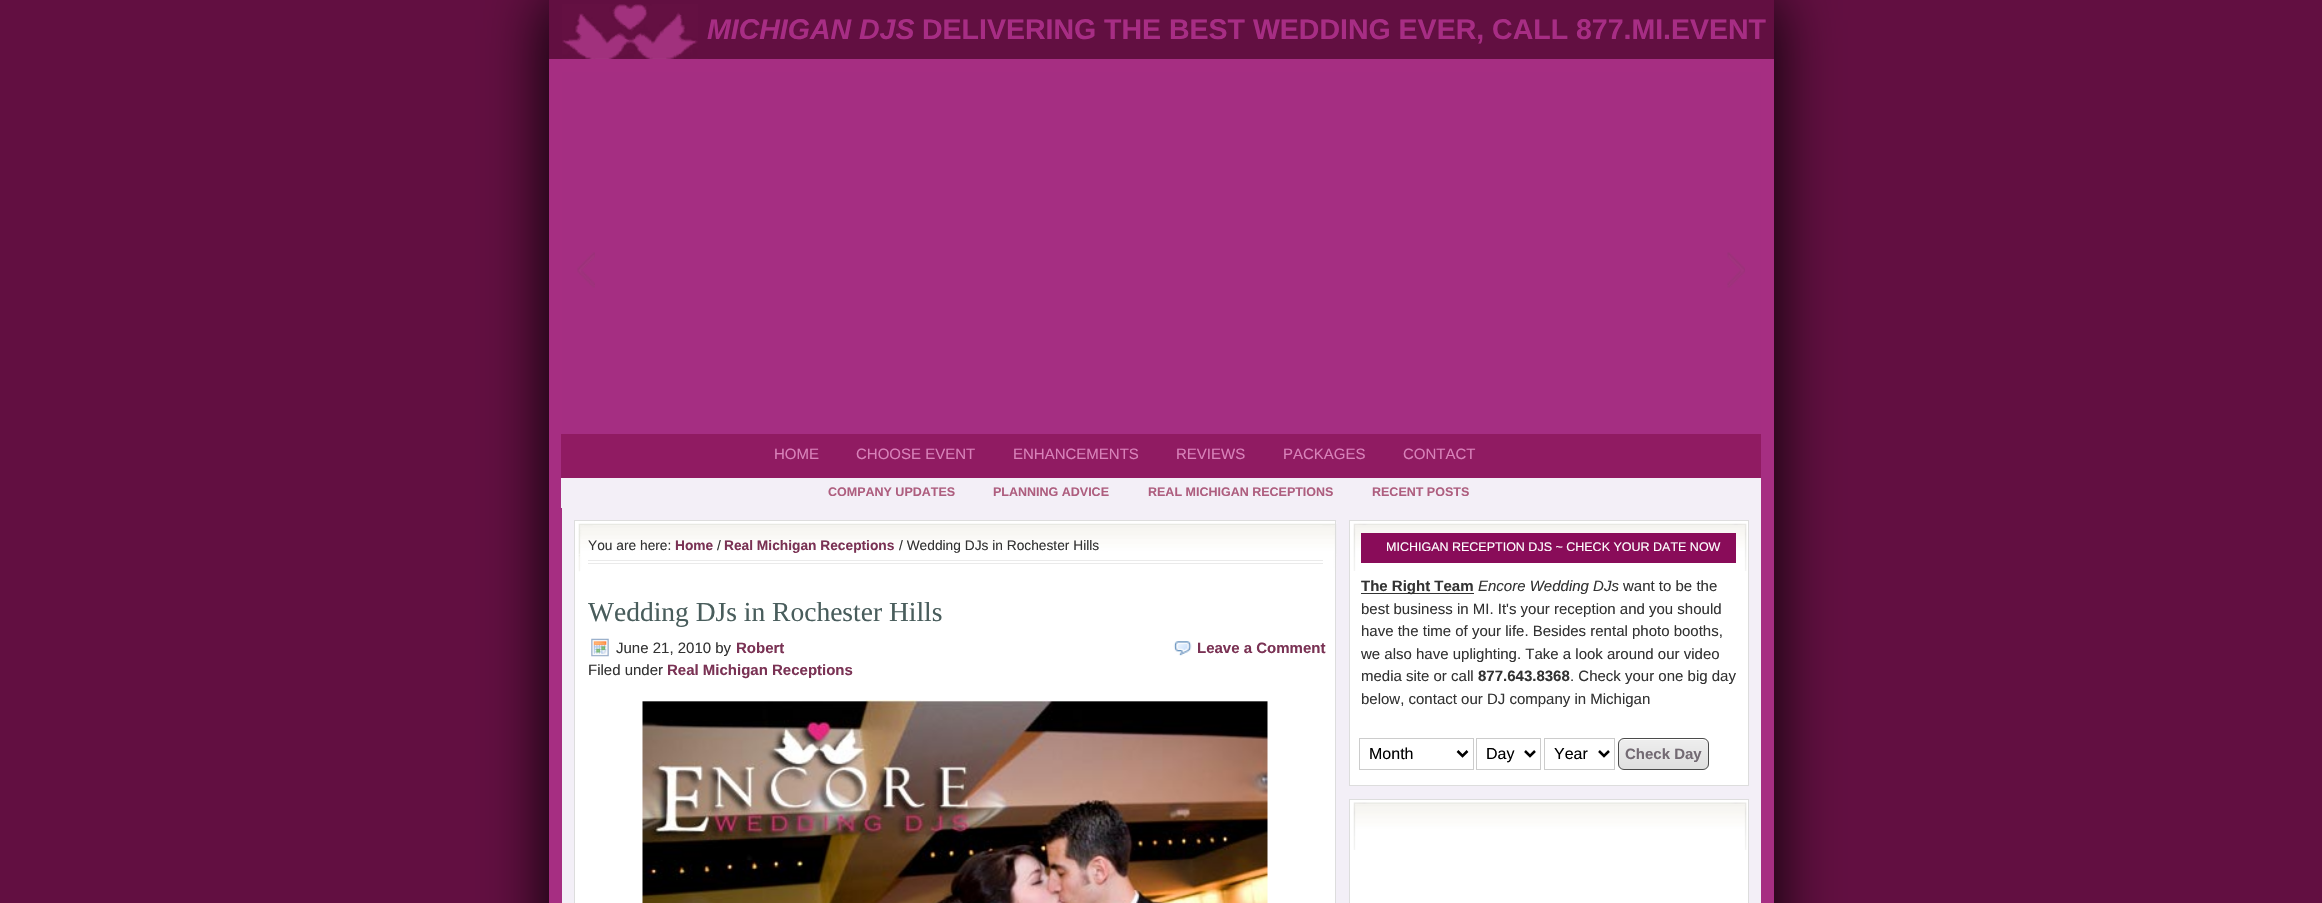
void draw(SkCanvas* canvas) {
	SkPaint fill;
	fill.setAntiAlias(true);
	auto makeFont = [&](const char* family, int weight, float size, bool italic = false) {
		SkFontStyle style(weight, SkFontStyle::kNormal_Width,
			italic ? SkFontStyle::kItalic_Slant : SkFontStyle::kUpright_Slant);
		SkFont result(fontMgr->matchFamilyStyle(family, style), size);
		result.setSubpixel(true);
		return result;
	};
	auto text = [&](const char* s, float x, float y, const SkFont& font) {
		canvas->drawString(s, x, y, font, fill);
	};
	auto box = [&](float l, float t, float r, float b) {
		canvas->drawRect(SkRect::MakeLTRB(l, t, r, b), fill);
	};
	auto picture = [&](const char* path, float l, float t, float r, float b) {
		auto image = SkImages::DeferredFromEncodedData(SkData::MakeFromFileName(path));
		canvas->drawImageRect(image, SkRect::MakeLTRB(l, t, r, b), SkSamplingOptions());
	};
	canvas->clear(0xFF620F41);
	canvas->save();
	canvas->clipPath(SkPathBuilder(SkPathFillType::kEvenOdd).moveTo(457, 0).lineTo(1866, 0).lineTo(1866, 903).lineTo(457, 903).close().moveTo(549, 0).lineTo(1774, 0).lineTo(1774, 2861).lineTo(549, 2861).close().detach(), true);
	fill.setColor(0xFF000000);
	fill.setMaskFilter(SkMaskFilter::MakeBlur(kNormal_SkBlurStyle, 30));
	canvas->drawRect(SkRect::MakeLTRB(548, -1, 1775, 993), fill);
	fill.setMaskFilter(nullptr);
	canvas->restore();
	picture("image0.png", 562, 4, 698, 59);
	fill.setColor(0xFFF3EFF7);
	box(562, 508, 1761, 903);
	fill.setStyle(SkPaint::kStroke_Style);
	fill.setStrokeWidth(13);
	fill.setColor(0xFFA62E82);
	canvas->drawRect(SkRect::MakeLTRB(555.5f, 65.5f, 1767.5f, 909.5f), fill);
	fill.setStyle(SkPaint::kFill_Style);
	fill.setColor(0xFFA52E82);
	box(562, 72, 1761, 434);
	picture("image1.png", 577, 252, 595, 288);
	picture("image2.png", 1727, 252, 1745, 288);
	fill.setColor(0xFF901B62);
	box(561, 434, 1761, 478);
	fill.setColor(0xFFF3EFF7);
	box(561, 478, 1761, 508);
	fill.setColor(0xFFFFFFFF);
	box(575, 521, 1335, 903);
	picture("image3.png", 578, 522, 1337, 572);
	fill.setStyle(SkPaint::kStroke_Style);
	fill.setStrokeWidth(1);
	fill.setColor(0xFFDDDDDD);
	canvas->drawRect(SkRect::MakeLTRB(574.5f, 520.5f, 1335.5f, 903.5f), fill);
	fill.setStyle(SkPaint::kFill_Style);
	fill.setColor(0xFFEAEAEA);
	box(588, 560, 1323, 561);
	box(588, 563, 1323, 564);
	picture("image4.png", 591, 638, 609, 657);
	picture("image5.png", 1173, 641, 1192, 656);
	picture("image6.png", 642, 700, 1268, 903);
	fill.setColor(0xFFFFFFFF);
	box(1350, 521, 1748, 785);
	picture("image7.png", 1353, 523, 1747, 571);
	fill.setStyle(SkPaint::kStroke_Style);
	fill.setColor(0xFFDDDDDD);
	canvas->drawRect(SkRect::MakeLTRB(1349.5f, 520.5f, 1748.5f, 785.5f), fill);
	fill.setStyle(SkPaint::kFill_Style);
	fill.setColor(0xFF890C59);
	box(1361, 533, 1736, 563);
	fill.setColor(0xFF333333);
	box(1361, 593, 1474, 594);
	fill.setStyle(SkPaint::kStroke_Style);
	fill.setColor(0xFFCCCCCC);
	canvas->drawRect(SkRect::MakeLTRB(1359.5f, 738.5f, 1473.5f, 769.5f), fill);
	fill.setStrokeWidth(2.5f);
	fill.setColor(0xFF000000);
	canvas->drawPath(SkPathBuilder().moveTo(1457.5f, 751).lineTo(1462.5f, 756).lineTo(1467.5f, 751).detach(), fill);
	fill.setStrokeWidth(1);
	fill.setColor(0xFFCCCCCC);
	canvas->drawRect(SkRect::MakeLTRB(1476.5f, 738.5f, 1540.5f, 769.5f), fill);
	fill.setStrokeWidth(2.5f);
	fill.setColor(0xFF000000);
	canvas->drawPath(SkPathBuilder().moveTo(1525, 751).lineTo(1530, 756).lineTo(1535, 751).detach(), fill);
	fill.setStrokeWidth(1);
	fill.setColor(0xFFCCCCCC);
	canvas->drawRect(SkRect::MakeLTRB(1544.5f, 738.5f, 1614.5f, 769.5f), fill);
	fill.setStrokeWidth(2.5f);
	fill.setColor(0xFF000000);
	canvas->drawPath(SkPathBuilder().moveTo(1599, 751).lineTo(1604, 756).lineTo(1609, 751).detach(), fill);
	canvas->save();
	canvas->clipPath(SkPathBuilder().moveTo(1624, 738).lineTo(1703, 738).cubicTo(1706.5f, 738, 1709, 740.5f, 1709, 744).lineTo(1709, 764).cubicTo(1709, 767.5f, 1706.5f, 770, 1703, 770).lineTo(1624, 770).cubicTo(1620.5f, 770, 1618, 767.5f, 1618, 764).lineTo(1618, 744).cubicTo(1618, 740.5f, 1620.5f, 738, 1624, 738).close().detach(), true);
	fill.setStyle(SkPaint::kFill_Style);
	{
		const SkColor colors[] = {0xFFEDEDED, 0xFFDFDFDF};
		const float stops[] = {0.05f, 1};
		const SkPoint ends[] = {{1619, 739}, {1619, 769}};
		fill.setShader(SkGradientShader::MakeLinear(ends, colors, stops, 2, SkTileMode::kClamp));
		fill.setAlpha(255);
	}
	box(1618, 739, 1709, 769);
	canvas->restore();
	fill.setShader(nullptr);
	fill.setColor(0xFFFFFFFF);
	canvas->drawPath(SkPathBuilder().moveTo(1624, 740).lineTo(1702, 740).cubicTo(1705, 740, 1708, 742, 1708, 745).cubicTo(1708, 736, 1695, 739, 1690, 739).lineTo(1637, 739).cubicTo(1632, 739, 1619, 736, 1619, 745).cubicTo(1619, 742, 1621, 740, 1624, 740).close().detach(), fill);
	fill.setStyle(SkPaint::kStroke_Style);
	fill.setStrokeWidth(1);
	fill.setColor(0xFF4B4B4B);
	canvas->drawRoundRect(SkRect::MakeLTRB(1618.5f, 738.5f, 1708.5f, 769.5f), 5.5f, 5.5f, fill);
	fill.setStyle(SkPaint::kFill_Style);
	fill.setColor(0xFFFFFFFF);
	box(1350, 800, 1748, 903);
	picture("image8.png", 1353, 802, 1747, 850);
	fill.setStyle(SkPaint::kStroke_Style);
	fill.setColor(0xFFDDDDDD);
	canvas->drawRect(SkRect::MakeLTRB(1349.5f, 799.5f, 1748.5f, 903.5f), fill);
	auto font1 = makeFont("Liberation Sans", 700, 28.5f, true);
	fill.setStyle(SkPaint::kFill_Style);
	fill.setColor(0xFFA72D84);
	text("MICHIGAN DJS", 707, 39, font1);
	auto font2 = makeFont("Liberation Sans", 700, 28.5f);
	text("DELIVERING THE BEST WEDDING EVER, CALL 877.MI.EVENT", 922, 39, font2);
	auto font3 = makeFont("Liberation Sans", 400, 15);
	fill.setColor(0xFFD881B9);
	text("HOME", 774, 459, font3);
	text("CHOOSE EVENT", 856, 459, font3);
	text("ENHANCEMENTS", 1013, 459, font3);
	text("REVIEWS", 1176, 459, font3);
	text("PACKAGES", 1283, 459, font3);
	text("CONTACT", 1403, 459, font3);
	auto font4 = makeFont("Liberation Sans", 700, 12.5f);
	fill.setColor(0xFFAE5E7F);
	text("COMPANY UPDATES", 828, 496, font4);
	text("PLANNING ADVICE", 993, 496, font4);
	text("REAL MICHIGAN RECEPTIONS", 1148, 496, font4);
	text("RECENT POSTS", 1372, 496, font4);
	auto font5 = makeFont("Liberation Sans", 400, 13.75f);
	fill.setColor(0xFF333333);
	text("You are here:", 588, 550, font5);
	auto font6 = makeFont("Liberation Sans", 700, 13.75f);
	fill.setColor(0xFF7A3254);
	text("Home", 675, 550, font6);
	fill.setColor(0xFF333333);
	text("/", 717, 550, font5);
	fill.setColor(0xFF7A3254);
	text("Real Michigan Receptions", 724, 550, font6);
	fill.setColor(0xFF333333);
	text("/ Wedding DJs in Rochester Hills", 899, 550, font5);
	auto font7 = makeFont("Liberation Serif", 400, 27.5f);
	fill.setColor(0xFF495D5C);
	text("Wedding DJs in Rochester Hills", 588, 621, font7);
	fill.setColor(0xFF333333);
	text("June 21, 2010 by", 616, 653, font3);
	auto font8 = makeFont("Liberation Sans", 700, 15);
	fill.setColor(0xFF7A3254);
	text("Robert", 736, 653, font8);
	fill.setColor(0xFF333333);
	text("Filed under", 588, 675, font3);
	fill.setColor(0xFF7A3254);
	text("Real Michigan Receptions", 667, 675, font8);
	text("Leave a Comment", 1197, 653, font8);
	auto font9 = makeFont("Liberation Sans", 400, 12.5f);
	fill.setColor(0xFFFFFFFF);
	text("MICHIGAN RECEPTION DJS ~ CHECK YOUR DATE NOW", 1386, 551, font9);
	fill.setColor(0xFF333333);
	text("The Right Team", 1361, 591, font8);
	auto font10 = makeFont("Liberation Sans", 400, 15, true);
	text("Encore Wedding DJs", 1478, 591, font10);
	text("want to be the", 1623, 591, font3);
	text("best business in MI. It's your reception and you should", 1361, 614, font3);
	text("have the time of your life. Besides rental photo booths,", 1361, 636, font3);
	text("we also have uplighting. Take a look around our video", 1361, 659, font3);
	text("media site or call", 1361, 681, font3);
	text("877.643.8368", 1478, 681, font8);
	text(". Check your one big day", 1570, 681, font3);
	text("below, contact our DJ company in Michigan", 1361, 704, font3);
	auto font11 = makeFont("Liberation Sans", 400, 16);
	fill.setColor(0xFF000000);
	text("Month", 1369, 759, font11);
	text("Day", 1486, 759, font11);
	text("Year", 1554, 759, font11);
	fill.setColor(0xFF736A73);
	text("Check Day", 1625, 759, font8);
}
